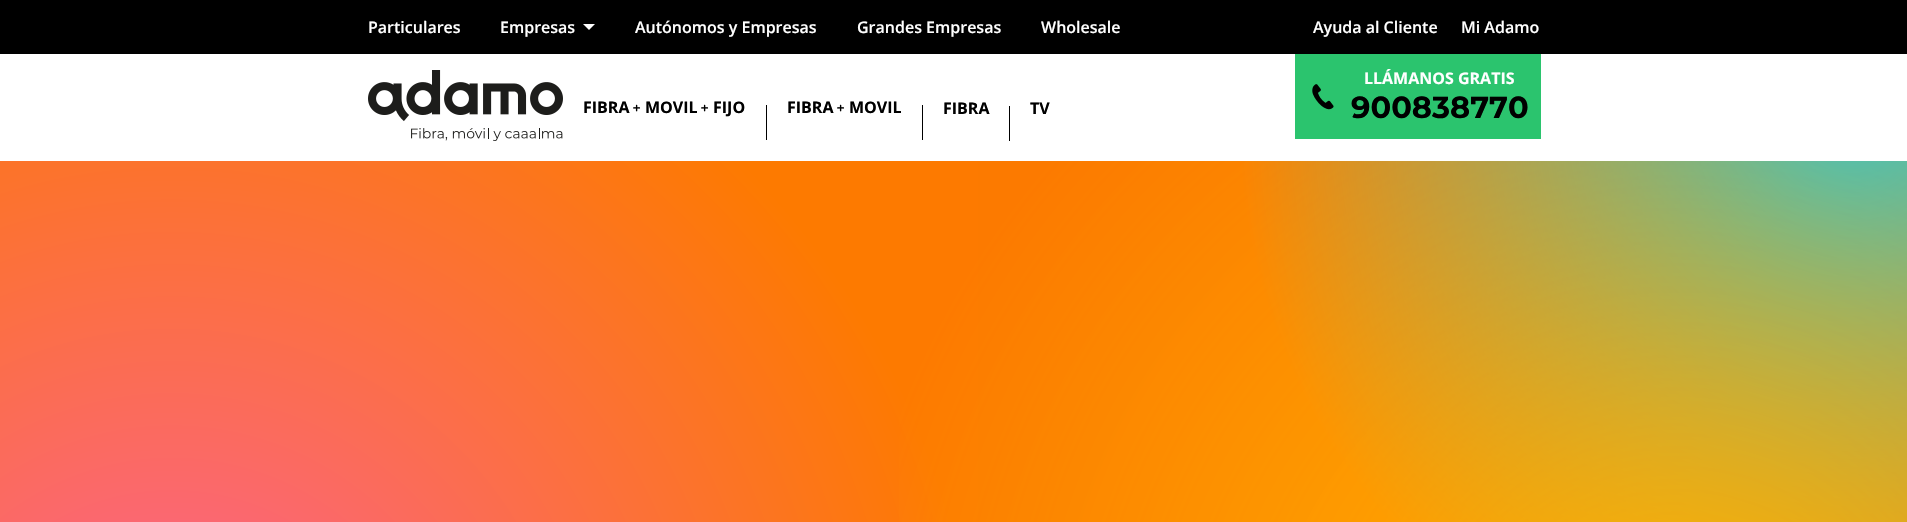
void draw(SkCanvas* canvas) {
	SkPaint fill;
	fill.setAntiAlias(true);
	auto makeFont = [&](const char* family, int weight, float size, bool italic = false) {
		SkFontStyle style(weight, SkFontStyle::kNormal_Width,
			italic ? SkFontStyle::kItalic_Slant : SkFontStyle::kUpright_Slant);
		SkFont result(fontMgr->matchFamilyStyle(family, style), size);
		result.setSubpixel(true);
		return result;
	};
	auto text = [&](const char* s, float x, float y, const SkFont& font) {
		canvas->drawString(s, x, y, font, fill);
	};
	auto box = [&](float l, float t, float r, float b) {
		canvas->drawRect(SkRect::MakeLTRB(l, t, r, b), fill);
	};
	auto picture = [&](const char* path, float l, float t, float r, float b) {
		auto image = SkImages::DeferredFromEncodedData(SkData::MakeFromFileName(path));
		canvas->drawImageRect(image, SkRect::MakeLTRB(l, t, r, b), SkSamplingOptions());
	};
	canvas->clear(0xFFFFFFFF);
	fill.setColor(0xFF000000);
	box(0, 0, 1907, 54);
	fill.setColor(0xFFFFFFFF);
	canvas->drawPath(SkPathBuilder().moveTo(583, 24).lineTo(595, 24).lineTo(589, 30).close().detach(), fill);
	picture("image0.png", 368, 70, 563, 141);
	fill.setColor(0xFF000000);
	box(766, 105, 767, 140);
	box(922, 105, 923, 140);
	box(1009, 106, 1010, 141);
	fill.setColor(0xFF2BC46E);
	box(1295, 54, 1541, 139);
	picture("image1.png", 1312, 84, 1334, 110);
	fill.setColor(0xFFFC7A00);
	box(978, 161, 1240, 522);
	{
		const SkColor colors[] = {0xFFFA6199, 0xFFFD7A00};
		const float stops[] = {0, 1};
		fill.setShader(SkGradientShader::MakeRadial({172, 732}, 807, colors, stops, 2, SkTileMode::kClamp));
		fill.setAlpha(255);
	}
	box(0, 161, 978, 522);
	{
		const SkColor colors[] = {0xFF00C7FF, 0xFFFC7A00};
		const float stops[] = {0, 1};
		SkMatrix m = SkMatrix::Translate(1850, 122).preScale(611, 610);
		fill.setShader(SkGradientShader::MakeRadial({0, 0}, 1, colors, stops, 2, SkTileMode::kClamp, 0, &m));
		fill.setAlpha(255);
	}
	box(1240, 161, 1907, 522);
	{
		const SkColor colors[] = {0xFFFFB500, 0x00FFB500};
		const float stops[] = {0, 1};
		fill.setShader(SkGradientShader::MakeRadial({1678, 709}, 833, colors, stops, 2, SkTileMode::kClamp));
		fill.setAlpha(255);
	}
	box(899, 161, 1907, 522);
	auto font1 = makeFont("Open Sans", 600, 16);
	fill.setShader(nullptr);
	fill.setColor(0xFFFFFFFF);
	text("Particulares", 368, 33, font1);
	text("Empresas", 500, 33, font1);
	text("Autónomos y Empresas", 635, 33, font1);
	text("Grandes Empresas", 857, 33, font1);
	text("Wholesale", 1041, 33, font1);
	text("Ayuda al Cliente", 1313, 33, font1);
	text("Mi Adamo", 1461, 33, font1);
	auto font2 = makeFont("Open Sans", 700, 16);
	fill.setColor(0xFF000000);
	text("FIBRA", 583, 113, font2);
	auto font3 = makeFont("WenQuanYi Zen Hei", 700, 16);
	text("﹢", 629, 113, font3);
	text("MOVIL", 645, 113, font2);
	text("﹢", 697, 113, font3);
	text("FIJO", 713, 113, font2);
	text("FIBRA", 787, 113, font2);
	text("﹢", 833, 113, font3);
	text("MOVIL", 849, 113, font2);
	text("FIBRA", 943, 114, font2);
	text("TV", 1030, 114, font2);
	fill.setColor(0xFFFFFFFF);
	text("LLÁMANOS GRATIS", 1364, 84, font2);
	auto font4 = makeFont("Montserrat", 700, 30.5f);
	fill.setColor(0xFF000000);
	text("900838770", 1351, 118, font4);
}
